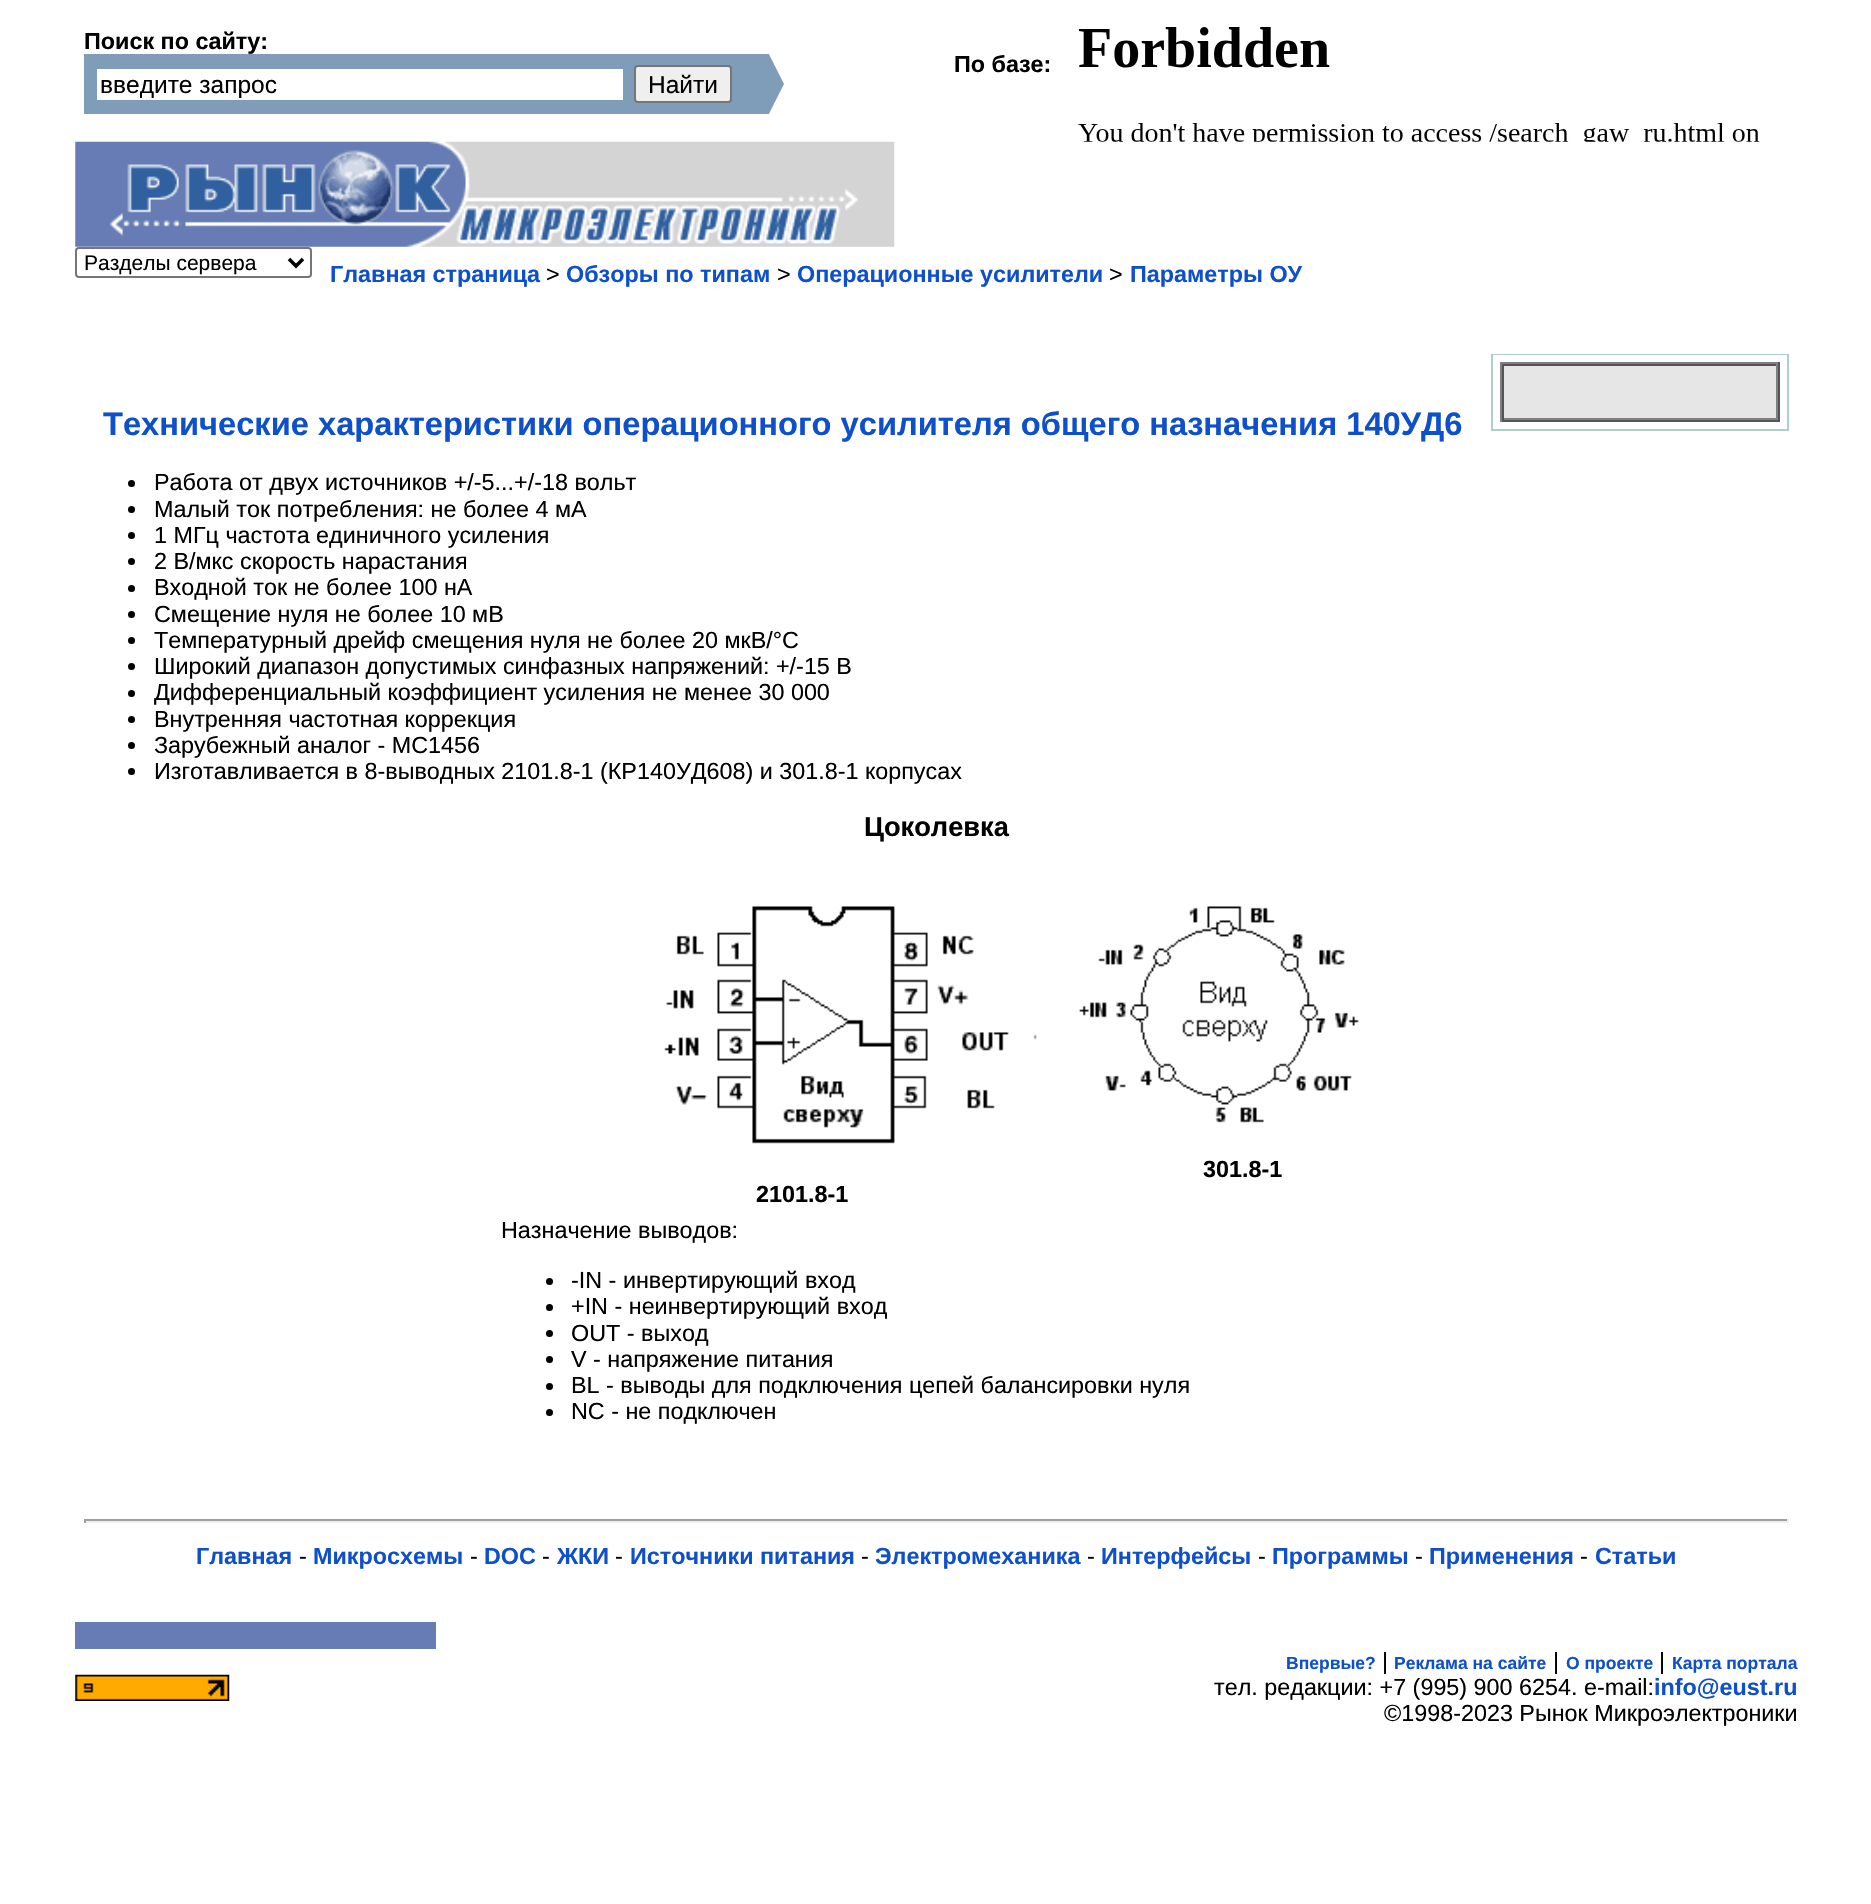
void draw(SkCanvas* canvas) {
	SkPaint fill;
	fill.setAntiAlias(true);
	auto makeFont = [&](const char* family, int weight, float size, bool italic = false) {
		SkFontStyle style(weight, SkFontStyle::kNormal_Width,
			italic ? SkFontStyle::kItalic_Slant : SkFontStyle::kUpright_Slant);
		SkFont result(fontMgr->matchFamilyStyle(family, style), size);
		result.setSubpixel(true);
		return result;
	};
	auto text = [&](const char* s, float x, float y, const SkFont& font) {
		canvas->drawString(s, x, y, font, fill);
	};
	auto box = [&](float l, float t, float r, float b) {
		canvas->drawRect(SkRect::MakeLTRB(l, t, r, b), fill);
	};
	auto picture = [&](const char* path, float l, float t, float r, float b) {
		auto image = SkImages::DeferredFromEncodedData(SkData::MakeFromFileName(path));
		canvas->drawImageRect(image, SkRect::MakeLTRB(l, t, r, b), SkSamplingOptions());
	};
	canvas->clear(0xFFFFFFFF);
	fill.setColor(0xFF7F9DB9);
	box(84, 54, 732, 114);
	fill.setColor(0xFFFFFFFF);
	box(97, 69, 623, 100);
	fill.setColor(0xFFEFEFEF);
	canvas->drawRoundRect(SkRect::MakeLTRB(635, 66, 731, 102), 3, 3, fill);
	fill.setStyle(SkPaint::kStroke_Style);
	fill.setStrokeWidth(2);
	fill.setColor(0xFF767676);
	canvas->drawRoundRect(SkRect::MakeLTRB(635, 66, 731, 102), 3, 3, fill);
	canvas->save();
	canvas->clipRect(SkRect::MakeLTRB(732, 54, 784, 114));
	fill.setStyle(SkPaint::kFill_Style);
	fill.setColor(0xFF7F9DB9);
	canvas->drawPath(SkPathBuilder().moveTo(732, 187).lineTo(732, -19).lineTo(784, 84).close().detach(), fill);
	canvas->restore();
	picture("image0.png", 1078, 27, 1760, 142);
	picture("image1.png", 75, 141, 895, 247);
	fill.setStyle(SkPaint::kStroke_Style);
	fill.setColor(0xFF767676);
	canvas->drawRoundRect(SkRect::MakeLTRB(76, 248, 311, 277), 3, 3, fill);
	fill.setStrokeWidth(3.5f);
	fill.setColor(0xFF000000);
	canvas->drawPath(SkPathBuilder().moveTo(289, 259).lineTo(296, 266).lineTo(303, 259).detach(), fill);
	fill.setStyle(SkPaint::kFill_Style);
	fill.setColor(0xFFACCFC7);
	box(1491, 354, 1789, 431);
	fill.setColor(0xFFFFFFFF);
	box(1493, 355, 1787, 429);
	fill.setColor(0xFFE6E6E6);
	box(1504, 366, 1776, 418);
	fill.setColor(0xFF808080);
	box(1500, 362, 1780, 364);
	fill.setColor(0xFF555555);
	box(1778, 362, 1780, 422);
	box(1500, 420, 1780, 422);
	fill.setColor(0xFF808080);
	box(1500, 362, 1502, 422);
	fill.setColor(0xFF555555);
	box(1502, 364, 1778, 366);
	fill.setColor(0xFF808080);
	box(1776, 364, 1778, 420);
	box(1502, 418, 1778, 420);
	fill.setColor(0xFF555555);
	box(1502, 364, 1504, 420);
	fill.setColor(0xFF000000);
	canvas->drawCircle(131.5f, 483.5f, 3.5f, fill);
	canvas->drawCircle(131.5f, 509.5f, 3.5f, fill);
	canvas->drawCircle(131.5f, 535.5f, 3.5f, fill);
	canvas->drawCircle(131.5f, 561.5f, 3.5f, fill);
	canvas->drawCircle(131.5f, 588.5f, 3.5f, fill);
	canvas->drawCircle(131.5f, 614.5f, 3.5f, fill);
	canvas->drawCircle(131.5f, 640.5f, 3.5f, fill);
	canvas->drawCircle(131.5f, 666.5f, 3.5f, fill);
	canvas->drawCircle(131.5f, 693.5f, 3.5f, fill);
	canvas->drawCircle(131.5f, 719.5f, 3.5f, fill);
	canvas->drawCircle(131.5f, 745.5f, 3.5f, fill);
	canvas->drawCircle(131.5f, 771.5f, 3.5f, fill);
	picture("image2.png", 1079, 906, 1359, 1123);
	picture("image3.png", 664, 906, 1037, 1144);
	canvas->drawCircle(549.5f, 1281.5f, 3.5f, fill);
	canvas->drawCircle(549.5f, 1307.5f, 3.5f, fill);
	canvas->drawCircle(549.5f, 1333.5f, 3.5f, fill);
	canvas->drawCircle(549.5f, 1359.5f, 3.5f, fill);
	canvas->drawCircle(549.5f, 1386.5f, 3.5f, fill);
	canvas->drawCircle(549.5f, 1412.5f, 3.5f, fill);
	fill.setColor(0xFF9F9F9F);
	box(84, 1519, 1789, 1521);
	fill.setColor(0xFFEEEEEE);
	box(1787, 1519, 1789, 1523);
	box(84, 1521, 1789, 1523);
	fill.setColor(0xFF9F9F9F);
	box(84, 1519, 86, 1523);
	fill.setColor(0xFF677CB4);
	box(75, 1622, 436, 1649);
	picture("image4.png", 75, 1674, 230, 1701);
	auto font1 = makeFont("Liberation Sans", 700, 23.35f);
	fill.setColor(0xFF000000);
	text("Поиск по сайту:", 84, 49, font1);
	auto font2 = makeFont("Liberation Sans", 400, 24.5f);
	text("введите запрос", 100, 93, font2);
	text("Найти", 648, 93, font2);
	text("По базе:", 954, 72, font1);
	auto font3 = makeFont("Liberation Sans", 400, 21);
	text("Разделы сервера", 84, 270, font3);
	fill.setColor(0xFF0E50CB);
	text("Главная страница", 330, 282, font1);
	auto font4 = makeFont("Liberation Sans", 400, 23.35f);
	fill.setColor(0xFF000000);
	text(">", 546, 282, font4);
	fill.setColor(0xFF0E50CB);
	text("Обзоры по типам", 566, 282, font1);
	fill.setColor(0xFF000000);
	text(">", 777, 282, font4);
	fill.setColor(0xFF0E50CB);
	text("Операционные усилители", 797, 282, font1);
	fill.setColor(0xFF000000);
	text(">", 1109, 282, font4);
	fill.setColor(0xFF0E50CB);
	text("Параметры ОУ", 1130, 282, font1);
	auto font5 = makeFont("Liberation Sans", 700, 32.65f);
	text("Технические характеристики операционного усилителя общего назначения 140УД6", 103, 435, font5);
	fill.setColor(0xFF000000);
	text("Работа от двух источников +/-5...+/-18 вольт", 154, 490, font4);
	text("Малый ток потребления: не более 4 мА", 154, 517, font4);
	text("1 МГц частота единичного усиления", 154, 543, font4);
	text("2 В/мкс скорость нарастания", 154, 569, font4);
	text("Входной ток не более 100 нА", 154, 595, font4);
	text("Смещение нуля не более 10 мВ", 154, 622, font4);
	text("Температурный дрейф смещения нуля не более 20 мкВ/°С", 154, 648, font4);
	text("Широкий диапазон допустимых синфазных напряжений: +/-15 В", 154, 674, font4);
	text("Дифференциальный коэффициент усиления не менее 30 000", 154, 700, font4);
	text("Внутренняя частотная коррекция", 154, 727, font4);
	text("Зарубежный аналог - МС1456", 154, 753, font4);
	text("Изготавливается в 8-выводных 2101.8-1 (КР140УД608) и 301.8-1 корпусах", 154, 779, font4);
	auto font6 = makeFont("Liberation Sans", 700, 27.25f);
	text("Цоколевка", 864, 836, font6);
	text("301.8-1", 1203, 1177, font1);
	text("2101.8-1", 756, 1202, font1);
	text("Назначение выводов:", 501, 1238, font4);
	text("-IN - инвертирующий вход", 571, 1288, font4);
	text("+IN - неинвертирующий вход", 571, 1314, font4);
	text("OUT - выход", 571, 1341, font4);
	text("V - напряжение питания", 571, 1367, font4);
	text("BL - выводы для подключения цепей балансировки нуля", 571, 1393, font4);
	text("NC - не подключен", 571, 1419, font4);
	fill.setColor(0xFF0E50CB);
	text("Главная", 196, 1564, font1);
	fill.setColor(0xFF000000);
	text("-", 299, 1564, font4);
	fill.setColor(0xFF0E50CB);
	text("Микросхемы", 313, 1564, font1);
	fill.setColor(0xFF000000);
	text("-", 470, 1564, font4);
	fill.setColor(0xFF0E50CB);
	text("DOC", 484, 1564, font1);
	fill.setColor(0xFF000000);
	text("-", 542, 1564, font4);
	fill.setColor(0xFF0E50CB);
	text("ЖКИ", 557, 1564, font1);
	fill.setColor(0xFF000000);
	text("-", 615, 1564, font4);
	fill.setColor(0xFF0E50CB);
	text("Источники питания", 630, 1564, font1);
	fill.setColor(0xFF000000);
	text("-", 861, 1564, font4);
	fill.setColor(0xFF0E50CB);
	text("Электромеханика", 875, 1564, font1);
	fill.setColor(0xFF000000);
	text("-", 1087, 1564, font4);
	fill.setColor(0xFF0E50CB);
	text("Интерфейсы", 1101, 1564, font1);
	fill.setColor(0xFF000000);
	text("-", 1258, 1564, font4);
	fill.setColor(0xFF0E50CB);
	text("Программы", 1272, 1564, font1);
	fill.setColor(0xFF000000);
	text("-", 1415, 1564, font4);
	fill.setColor(0xFF0E50CB);
	text("Применения", 1429, 1564, font1);
	fill.setColor(0xFF000000);
	text("-", 1580, 1564, font4);
	fill.setColor(0xFF0E50CB);
	text("Статьи", 1595, 1564, font1);
	auto font7 = makeFont("Liberation Sans", 700, 17.5f);
	text("Впервые?", 1286, 1669, font7);
	fill.setColor(0xFF000000);
	text("|", 1382, 1669, font4);
	fill.setColor(0xFF0E50CB);
	text("Реклама на сайте", 1394, 1669, font7);
	fill.setColor(0xFF000000);
	text("|", 1553, 1669, font4);
	fill.setColor(0xFF0E50CB);
	text("О проекте", 1566, 1669, font7);
	fill.setColor(0xFF000000);
	text("|", 1659, 1669, font4);
	fill.setColor(0xFF0E50CB);
	text("Карта портала", 1672, 1669, font7);
	fill.setColor(0xFF000000);
	text("тел. редакции: +7 (995) 900 6254. e-mail:", 1214, 1695, font4);
	fill.setColor(0xFF0E50CB);
	text("info@eust.ru", 1654, 1695, font1);
	fill.setColor(0xFF000000);
	text("©1998-2023 Рынок Микроэлектроники", 1384, 1721, font4);
}
